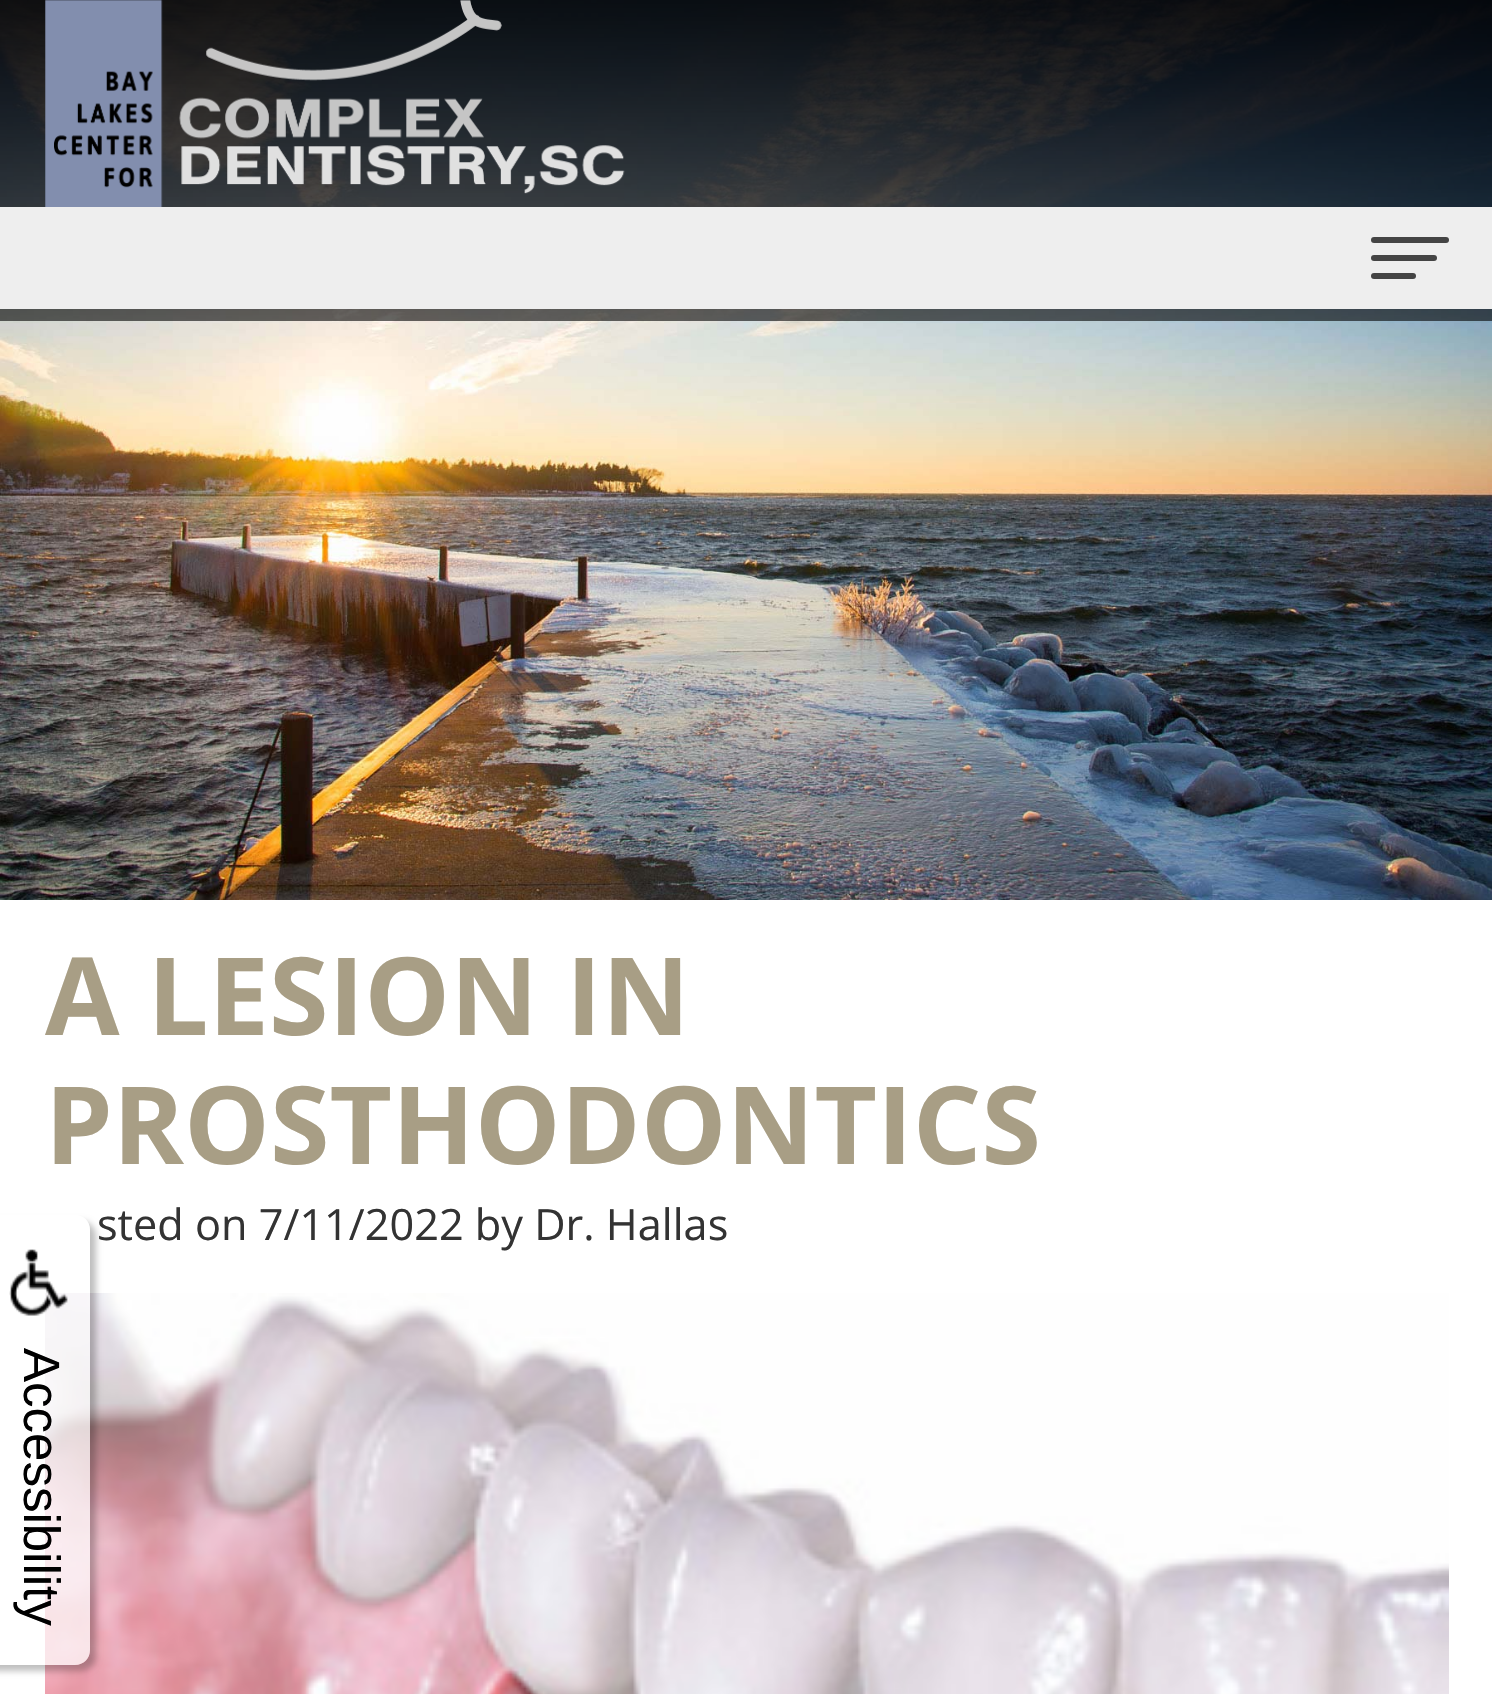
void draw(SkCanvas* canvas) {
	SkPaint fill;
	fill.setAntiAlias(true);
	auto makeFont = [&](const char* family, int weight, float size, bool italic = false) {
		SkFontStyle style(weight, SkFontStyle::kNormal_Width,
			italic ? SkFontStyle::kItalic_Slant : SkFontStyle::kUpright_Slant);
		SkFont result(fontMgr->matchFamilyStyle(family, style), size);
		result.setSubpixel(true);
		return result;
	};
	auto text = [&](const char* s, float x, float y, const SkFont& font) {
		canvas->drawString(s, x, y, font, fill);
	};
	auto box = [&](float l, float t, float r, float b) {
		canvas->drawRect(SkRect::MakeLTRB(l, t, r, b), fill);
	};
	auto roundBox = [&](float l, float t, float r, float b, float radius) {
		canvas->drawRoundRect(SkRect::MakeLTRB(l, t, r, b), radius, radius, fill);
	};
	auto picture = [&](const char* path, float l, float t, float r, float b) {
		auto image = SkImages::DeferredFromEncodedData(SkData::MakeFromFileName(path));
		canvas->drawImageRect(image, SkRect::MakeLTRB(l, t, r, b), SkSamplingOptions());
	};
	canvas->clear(0xFFFFFFFF);
	picture("image0.png", 0, 0, 1492, 900);
	picture("image1.png", 45, 0, 625, 207);
	fill.setColor(0xFFEEEEEE);
	box(0, 207, 1492, 309);
	fill.setColor(0xFF444444);
	roundBox(1371, 237, 1449, 243, 3);
	roundBox(1371, 255, 1437, 261, 3);
	roundBox(1371, 273, 1416, 279, 3);
	picture("image2.png", 45, 1293, 1449, 1694);
	canvas->save();
	canvas->clipPath(SkPathBuilder(SkPathFillType::kEvenOdd).moveTo(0, 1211).lineTo(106, 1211).lineTo(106, 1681).lineTo(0, 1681).close().moveTo(-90, 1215).lineTo(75, 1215).cubicTo(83.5f, 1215, 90, 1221.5f, 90, 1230).lineTo(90, 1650).cubicTo(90, 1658.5f, 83.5f, 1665, 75, 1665).lineTo(-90, 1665).close().detach(), true);
	fill.setColor(0x40000000);
	fill.setMaskFilter(SkMaskFilter::MakeBlur(kNormal_SkBlurStyle, 3));
	canvas->drawRoundRect(SkRect::MakeLTRB(-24, 1221, 96, 1671), 15, 15, fill);
	fill.setMaskFilter(nullptr);
	canvas->restore();
	fill.setColor(0xB3FFFFFF);
	canvas->drawPath(SkPathBuilder().moveTo(-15, 1215).lineTo(75, 1215).cubicTo(83.5f, 1215, 90, 1221.5f, 90, 1230).lineTo(90, 1650).cubicTo(90, 1658.5f, 83.5f, 1665, 75, 1665).lineTo(-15, 1665).close().detach(), fill);
	picture("image3.png", 9, 1249, 68, 1316);
	auto font1 = makeFont("Open Sans", 700, 108);
	fill.setColor(0xFFA89E85);
	text("A LESION IN", 45, 1035, font1);
	text("PROSTHODONTICS", 45, 1164, font1);
	auto font2 = makeFont("Open Sans", 400, 43.25f);
	fill.setColor(0xFF333333);
	text("sted on 7/11/2022 by Dr. Hallas", 97, 1240, font2);
	auto font3 = makeFont("Liberation Sans", 400, 51);
	fill.setColor(0xFF000000);
	canvas->save();
	canvas->rotate(90, 24, 1348);
	text("Accessibility", 24, 1348, font3);
	canvas->restore();
}
